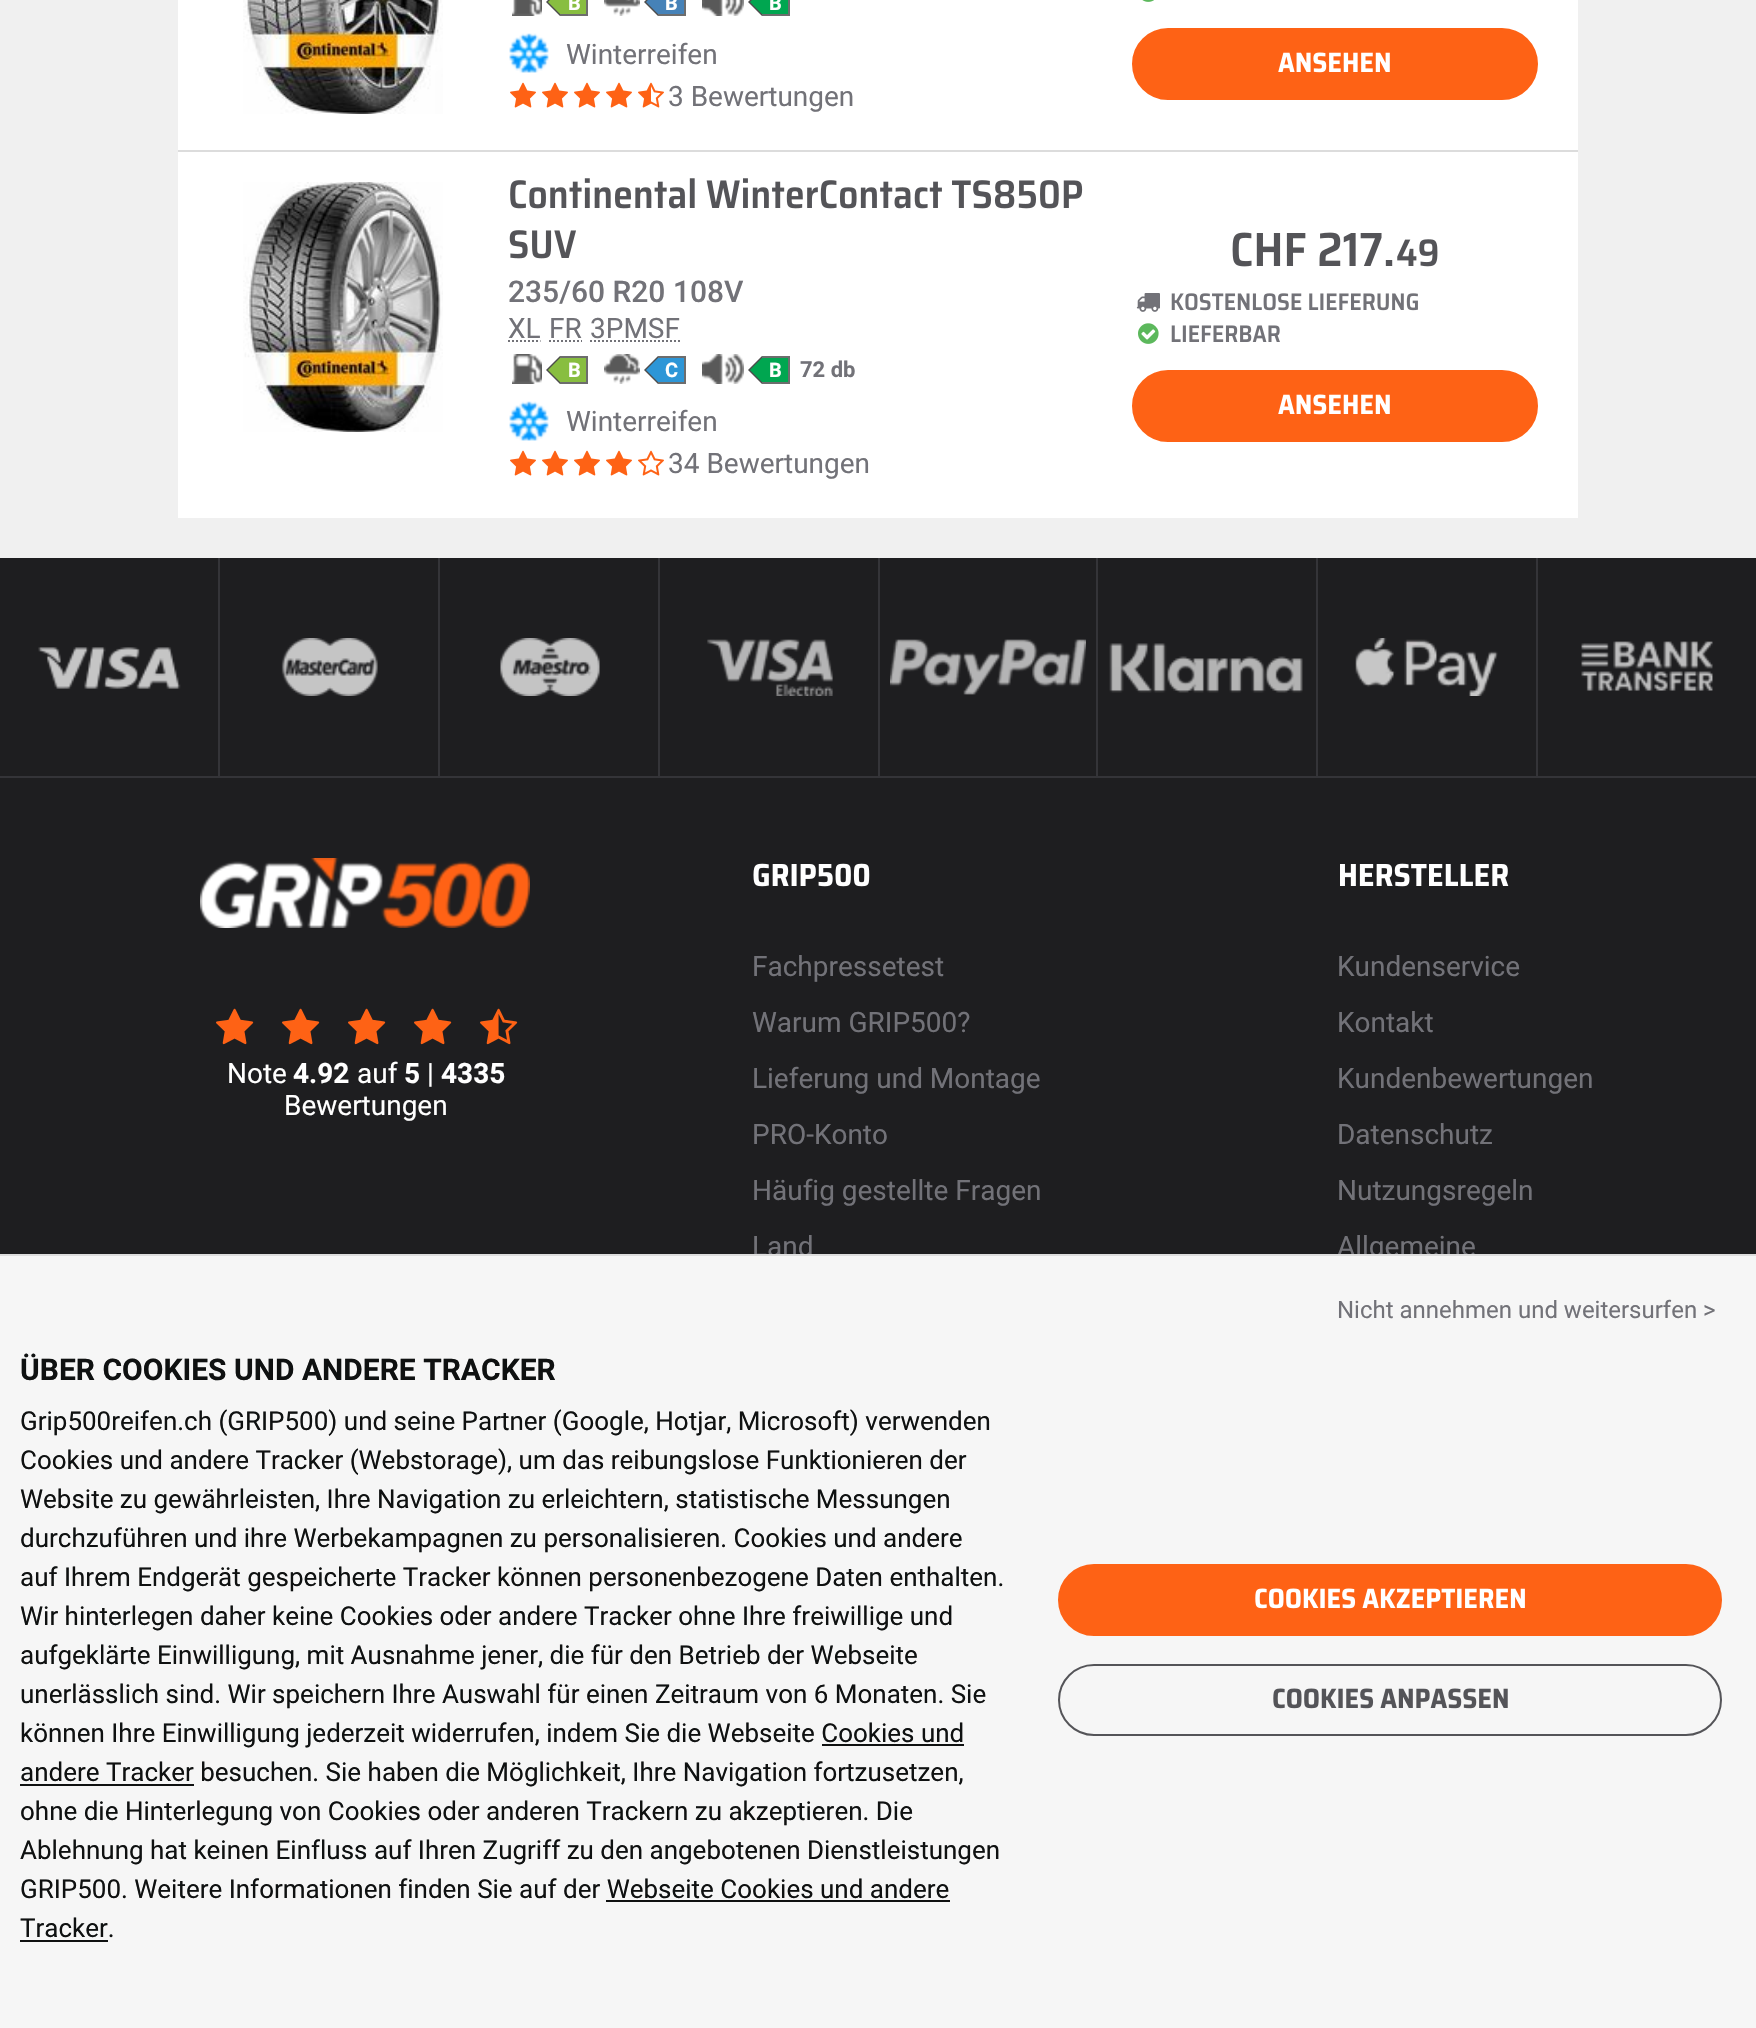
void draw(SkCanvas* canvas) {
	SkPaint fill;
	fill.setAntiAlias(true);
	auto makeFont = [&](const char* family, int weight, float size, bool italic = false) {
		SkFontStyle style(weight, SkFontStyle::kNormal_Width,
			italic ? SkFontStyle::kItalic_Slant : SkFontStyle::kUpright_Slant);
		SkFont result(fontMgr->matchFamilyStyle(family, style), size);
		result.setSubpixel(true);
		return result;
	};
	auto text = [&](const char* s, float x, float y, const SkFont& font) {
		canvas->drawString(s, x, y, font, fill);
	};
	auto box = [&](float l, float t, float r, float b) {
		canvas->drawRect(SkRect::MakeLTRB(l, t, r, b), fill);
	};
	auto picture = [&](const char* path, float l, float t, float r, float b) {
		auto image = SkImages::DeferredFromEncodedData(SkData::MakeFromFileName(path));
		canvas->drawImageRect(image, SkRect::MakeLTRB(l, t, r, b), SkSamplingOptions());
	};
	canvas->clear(0xFFF0F0F0);
	fill.setColor(0xFFFFFFFF);
	box(178, 0, 1578, 518);
	fill.setColor(0xFFDCDCDC);
	box(178, 150, 1578, 152);
	picture("image0.png", 243, 0, 443, 114);
	picture("image1.png", 512, 0, 542, 16);
	fill.setColor(0xFF88BE40);
	box(560, 0, 586, 14);
	fill.setColor(0xFF6D6D6D);
	box(586, 0, 588, 16);
	box(560, 14, 588, 16);
	fill.setColor(0xFF4C4C4C);
	canvas->drawPath(SkPathBuilder().moveTo(560, -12).lineTo(560, 16).lineTo(546, 2).close().detach(), fill);
	fill.setColor(0xFF88BE40);
	canvas->drawPath(SkPathBuilder().moveTo(560, -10).lineTo(560, 14).lineTo(548, 2).close().detach(), fill);
	picture("image2.png", 604, 0, 640, 16);
	fill.setColor(0xFF4682B8);
	box(658, 0, 684, 14);
	fill.setColor(0xFF6D6D6D);
	box(684, 0, 686, 16);
	box(658, 14, 686, 16);
	fill.setColor(0xFF4C4C4C);
	canvas->drawPath(SkPathBuilder().moveTo(658, -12).lineTo(658, 16).lineTo(644, 2).close().detach(), fill);
	fill.setColor(0xFF4682B8);
	canvas->drawPath(SkPathBuilder().moveTo(658, -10).lineTo(658, 14).lineTo(646, 2).close().detach(), fill);
	picture("image3.png", 702, 0, 744, 16);
	fill.setColor(0xFF00A650);
	box(762, 0, 788, 14);
	fill.setColor(0xFF6D6D6D);
	box(788, 0, 790, 16);
	box(762, 14, 790, 16);
	fill.setColor(0xFF4C4C4C);
	canvas->drawPath(SkPathBuilder().moveTo(762, -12).lineTo(762, 16).lineTo(748, 2).close().detach(), fill);
	fill.setColor(0xFF00A650);
	canvas->drawPath(SkPathBuilder().moveTo(762, -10).lineTo(762, 14).lineTo(750, 2).close().detach(), fill);
	picture("image4.png", 509, 33, 549, 73);
	picture("image5.png", 510, 82, 536, 108);
	picture("image5.png", 542, 82, 568, 108);
	picture("image5.png", 574, 82, 600, 108);
	picture("image5.png", 606, 82, 632, 108);
	picture("image6.png", 638, 82, 664, 108);
	picture("image7.png", 1142, 0, 1154, 2);
	fill.setColor(0xFFFE6215);
	canvas->drawRoundRect(SkRect::MakeLTRB(1133, 29, 1537, 99), 35, 35, fill);
	fill.setStyle(SkPaint::kStroke_Style);
	fill.setStrokeWidth(2);
	canvas->drawRoundRect(SkRect::MakeLTRB(1133, 29, 1537, 99), 35, 35, fill);
	picture("image8.png", 1278, 52, 1390, 73);
	picture("image9.png", 243, 182, 443, 432);
	picture("image10.png", 510, 178, 1083, 209);
	picture("image11.png", 509, 230, 576, 259);
	fill.setColor(0xFF727278);
	fill.setPathEffect(SkDashPathEffect::Make({{2, 2}}, 0));
	canvas->drawPath(SkPathBuilder().moveTo(508, 341).lineTo(540.5f, 341).detach(), fill);
	fill.setPathEffect(nullptr);
	fill.setPathEffect(SkDashPathEffect::Make({{2, 2}}, 0));
	canvas->drawPath(SkPathBuilder().moveTo(549, 341).lineTo(582, 341).detach(), fill);
	fill.setPathEffect(nullptr);
	fill.setPathEffect(SkDashPathEffect::Make({{2, 2}}, 0));
	canvas->drawPath(SkPathBuilder().moveTo(590, 341).lineTo(680, 341).detach(), fill);
	fill.setPathEffect(nullptr);
	picture("image12.png", 512, 354, 542, 384);
	fill.setStyle(SkPaint::kFill_Style);
	fill.setColor(0xFF88BE40);
	box(560, 358, 586, 382);
	fill.setColor(0xFF6D6D6D);
	box(560, 356, 588, 358);
	box(586, 356, 588, 384);
	box(560, 382, 588, 384);
	fill.setColor(0xFF4C4C4C);
	canvas->drawPath(SkPathBuilder().moveTo(560, 356).lineTo(560, 384).lineTo(546, 370).close().detach(), fill);
	fill.setColor(0xFF88BE40);
	canvas->drawPath(SkPathBuilder().moveTo(560, 358).lineTo(560, 382).lineTo(548, 370).close().detach(), fill);
	picture("image13.png", 604, 354, 640, 384);
	fill.setColor(0xFF2D96D7);
	box(658, 358, 684, 382);
	fill.setColor(0xFF6D6D6D);
	box(658, 356, 686, 358);
	box(684, 356, 686, 384);
	box(658, 382, 686, 384);
	fill.setColor(0xFF4C4C4C);
	canvas->drawPath(SkPathBuilder().moveTo(658, 356).lineTo(658, 384).lineTo(644, 370).close().detach(), fill);
	fill.setColor(0xFF2D96D7);
	canvas->drawPath(SkPathBuilder().moveTo(658, 358).lineTo(658, 382).lineTo(646, 370).close().detach(), fill);
	picture("image14.png", 702, 354, 744, 384);
	fill.setColor(0xFF00A650);
	box(762, 358, 788, 382);
	fill.setColor(0xFF6D6D6D);
	box(762, 356, 790, 358);
	box(788, 356, 790, 384);
	box(762, 382, 790, 384);
	fill.setColor(0xFF4C4C4C);
	canvas->drawPath(SkPathBuilder().moveTo(762, 356).lineTo(762, 384).lineTo(748, 370).close().detach(), fill);
	fill.setColor(0xFF00A650);
	canvas->drawPath(SkPathBuilder().moveTo(762, 358).lineTo(762, 382).lineTo(750, 370).close().detach(), fill);
	picture("image4.png", 509, 401, 549, 441);
	picture("image5.png", 510, 450, 536, 476);
	picture("image5.png", 542, 450, 568, 476);
	picture("image5.png", 574, 450, 600, 476);
	picture("image5.png", 606, 450, 632, 476);
	picture("image15.png", 638, 450, 664, 476);
	picture("image16.png", 1232, 232, 1393, 267);
	picture("image17.png", 1397, 239, 1438, 267);
	picture("image18.png", 1136, 293, 1160, 312);
	picture("image19.png", 1171, 293, 1418, 311);
	picture("image20.png", 1138, 323, 1159, 344);
	picture("image21.png", 1171, 325, 1280, 342);
	fill.setColor(0xFFFE6215);
	canvas->drawRoundRect(SkRect::MakeLTRB(1133, 371, 1537, 441), 35, 35, fill);
	fill.setStyle(SkPaint::kStroke_Style);
	canvas->drawRoundRect(SkRect::MakeLTRB(1133, 371, 1537, 441), 35, 35, fill);
	picture("image8.png", 1278, 394, 1390, 415);
	fill.setStyle(SkPaint::kFill_Style);
	fill.setColor(0xFF1E1E20);
	box(0, 558, 1756, 1254);
	fill.setColor(0xFF343438);
	box(0, 776, 1756, 778);
	picture("image22.png", 38, 647, 181, 689);
	box(218, 558, 220, 776);
	picture("image23.png", 281, 638, 378, 696);
	box(438, 558, 440, 776);
	picture("image24.png", 500, 638, 600, 696);
	box(658, 558, 660, 776);
	picture("image25.png", 707, 639, 833, 696);
	box(878, 558, 880, 776);
	picture("image26.png", 890, 639, 1086, 695);
	box(1096, 558, 1098, 776);
	picture("image27.png", 1109, 643, 1303, 693);
	box(1316, 558, 1318, 776);
	picture("image28.png", 1355, 638, 1498, 696);
	box(1536, 558, 1538, 776);
	picture("image29.png", 1581, 641, 1713, 691);
	picture("image30.png", 200, 858, 530, 928);
	picture("image31.png", 216, 1008, 254, 1045);
	picture("image31.png", 282, 1008, 320, 1045);
	picture("image31.png", 348, 1008, 386, 1045);
	picture("image31.png", 414, 1008, 452, 1045);
	picture("image32.png", 480, 1008, 518, 1045);
	picture("image33.png", 753, 863, 870, 887);
	picture("image34.png", 1340, 863, 1509, 887);
	auto font1 = makeFont("Roboto", 700, 20);
	fill.setColor(0xFFFFFFFF);
	text("B", 568, 10, font1);
	text("B", 665, 10, font1);
	text("B", 769, 10, font1);
	auto font2 = makeFont("Roboto", 400, 28);
	fill.setColor(0xFF727278);
	text("Winterreifen", 566, 64, font2);
	text("3 Bewertungen", 668, 106, font2);
	auto font3 = makeFont("Roboto", 500, 30);
	text("235/60 R20 108V", 508, 302, font3);
	text("XL", 508, 338, font2);
	text("FR", 549, 338, font2);
	text("3PMSF", 590, 338, font2);
	fill.setColor(0xFFFFFFFF);
	text("B", 568, 377, font1);
	text("C", 665, 377, font1);
	text("B", 769, 377, font1);
	auto font4 = makeFont("Roboto", 700, 22);
	fill.setColor(0xFF727278);
	text("72 db", 800, 377, font4);
	text("Winterreifen", 566, 431, font2);
	text("34 Bewertungen", 668, 473, font2);
	fill.setColor(0xFFFFFFFF);
	text("Note", 227, 1083, font2);
	auto font5 = makeFont("Roboto", 700, 28);
	text("4.92", 293, 1083, font5);
	text("auf", 357, 1083, font2);
	text("5", 404, 1083, font5);
	text("|", 427, 1083, font2);
	text("4335", 441, 1083, font5);
	text("Bewertungen", 284, 1115, font2);
	fill.setColor(0xFF727278);
	text("Fachpressetest", 752, 976, font2);
	text("Warum GRIP500?", 752, 1032, font2);
	text("Lieferung und Montage", 752, 1088, font2);
	text("PRO-Konto", 752, 1144, font2);
	text("Häufig gestellte Fragen", 752, 1200, font2);
	text("Land", 752, 1256, font2);
	text("Kundenservice", 1337, 976, font2);
	text("Kontakt", 1337, 1032, font2);
	text("Kundenbewertungen", 1337, 1088, font2);
	text("Datenschutz", 1337, 1144, font2);
	text("Nutzungsregeln", 1337, 1200, font2);
	text("Allgemeine", 1337, 1256, font2);
	fill.setColor(0xFFF6F6F6);
	box(0, 1256, 1756, 2028);
	fill.setColor(0xFFDDDDDD);
	box(0, 1254, 1756, 1256);
	auto font6 = makeFont("Roboto", 400, 24);
	fill.setColor(0xFF727278);
	text("Nicht annehmen und weitersurfen >", 1337, 1318, font6);
	auto font7 = makeFont("Roboto", 700, 30);
	fill.setColor(0xFF0F1111);
	text("ÜBER COOKIES UND ANDERE TRACKER", 20, 1380, font7);
	auto font8 = makeFont("Roboto", 400, 26);
	text("Grip500reifen.ch (GRIP500) und seine Partner (Google, Hotjar, Microsoft) verwenden", 20, 1430, font8);
	text("Cookies und andere Tracker (Webstorage), um das reibungslose Funktionieren der", 20, 1469, font8);
	text("Website zu gewährleisten, Ihre Navigation zu erleichtern, statistische Messungen", 20, 1508, font8);
	text("durchzuführen und ihre Werbekampagnen zu personalisieren. Cookies und andere", 20, 1547, font8);
	text("auf Ihrem Endgerät gespeicherte Tracker können personenbezogene Daten enthalten.", 20, 1586, font8);
	text("Wir hinterlegen daher keine Cookies oder andere Tracker ohne Ihre freiwillige und", 20, 1625, font8);
	text("aufgeklärte Einwilligung, mit Ausnahme jener, die für den Betrieb der Webseite", 20, 1664, font8);
	text("unerlässlich sind. Wir speichern Ihre Auswahl für einen Zeitraum von 6 Monaten. Sie", 20, 1703, font8);
	text("können Ihre Einwilligung jederzeit widerrufen, indem Sie die Webseite Cookies und", 20, 1742, font8);
	box(822, 1744, 964, 1746);
	box(20, 1784, 194, 1786);
	text("andere Tracker besuchen. Sie haben die Möglichkeit, Ihre Navigation fortzusetzen,", 20, 1781, font8);
	text("ohne die Hinterlegung von Cookies oder anderen Trackern zu akzeptieren. Die", 20, 1820, font8);
	text("Ablehnung hat keinen Einfluss auf Ihren Zugriff zu den angebotenen Dienstleistungen", 20, 1859, font8);
	text("GRIP500. Weitere Informationen finden Sie auf der Webseite Cookies und andere", 20, 1898, font8);
	text("Tracker.", 20, 1937, font8);
	box(606, 1900, 950, 1902);
	box(20, 1940, 108, 1942);
	fill.setColor(0xFFFE6215);
	canvas->drawRoundRect(SkRect::MakeLTRB(1059, 1565, 1721, 1635), 35, 35, fill);
	fill.setStyle(SkPaint::kStroke_Style);
	canvas->drawRoundRect(SkRect::MakeLTRB(1059, 1565, 1721, 1635), 35, 35, fill);
	picture("image35.png", 1255, 1588, 1525, 1609);
	fill.setColor(0xFF545458);
	canvas->drawRoundRect(SkRect::MakeLTRB(1059, 1665, 1721, 1735), 35, 35, fill);
	picture("image36.png", 1273, 1688, 1508, 1709);
}
